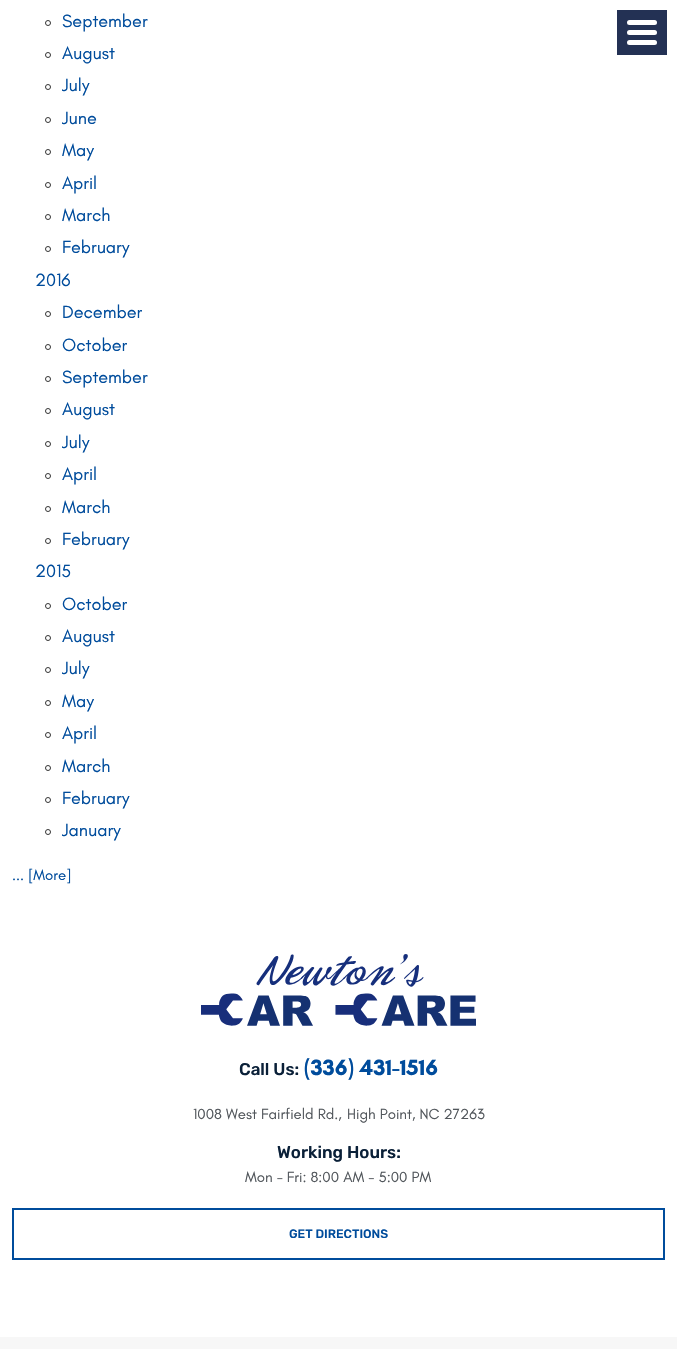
void draw(SkCanvas* canvas) {
	SkPaint fill;
	fill.setAntiAlias(true);
	auto makeFont = [&](const char* family, int weight, float size, bool italic = false) {
		SkFontStyle style(weight, SkFontStyle::kNormal_Width,
			italic ? SkFontStyle::kItalic_Slant : SkFontStyle::kUpright_Slant);
		SkFont result(fontMgr->matchFamilyStyle(family, style), size);
		result.setSubpixel(true);
		return result;
	};
	auto text = [&](const char* s, float x, float y, const SkFont& font) {
		canvas->drawString(s, x, y, font, fill);
	};
	auto box = [&](float l, float t, float r, float b) {
		canvas->drawRect(SkRect::MakeLTRB(l, t, r, b), fill);
	};
	auto roundBox = [&](float l, float t, float r, float b, float radius) {
		canvas->drawRoundRect(SkRect::MakeLTRB(l, t, r, b), radius, radius, fill);
	};
	auto picture = [&](const char* path, float l, float t, float r, float b) {
		auto image = SkImages::DeferredFromEncodedData(SkData::MakeFromFileName(path));
		canvas->drawImageRect(image, SkRect::MakeLTRB(l, t, r, b), SkSamplingOptions());
	};
	canvas->clear(0xFFFFFFFF);
	fill.setStyle(SkPaint::kStroke_Style);
	fill.setStrokeWidth(1);
	fill.setColor(0xFF333333);
	canvas->drawCircle(48, 23, 2.5f, fill);
	canvas->drawCircle(48, 55, 2.5f, fill);
	canvas->drawCircle(48, 87, 2.5f, fill);
	canvas->drawCircle(48, 120, 2.5f, fill);
	canvas->drawCircle(48, 152, 2.5f, fill);
	canvas->drawCircle(48, 185, 2.5f, fill);
	canvas->drawCircle(48, 217, 2.5f, fill);
	canvas->drawCircle(48, 249, 2.5f, fill);
	canvas->drawCircle(48, 314, 2.5f, fill);
	canvas->drawCircle(48, 347, 2.5f, fill);
	canvas->drawCircle(48, 379, 2.5f, fill);
	canvas->drawCircle(48, 411, 2.5f, fill);
	canvas->drawCircle(48, 444, 2.5f, fill);
	canvas->drawCircle(48, 476, 2.5f, fill);
	canvas->drawCircle(48, 509, 2.5f, fill);
	canvas->drawCircle(48, 541, 2.5f, fill);
	canvas->drawCircle(48, 606, 2.5f, fill);
	canvas->drawCircle(48, 638, 2.5f, fill);
	canvas->drawCircle(48, 670, 2.5f, fill);
	canvas->drawCircle(48, 703, 2.5f, fill);
	canvas->drawCircle(48, 735, 2.5f, fill);
	canvas->drawCircle(48, 768, 2.5f, fill);
	canvas->drawCircle(48, 800, 2.5f, fill);
	canvas->drawCircle(48, 832, 2.5f, fill);
	fill.setStyle(SkPaint::kFill_Style);
	fill.setColor(0xFF233154);
	box(617, 10, 667, 55);
	fill.setColor(0xFFFFFFFF);
	roundBox(627, 30, 657, 35, 2.5f);
	roundBox(627, 20, 657, 25, 2.5f);
	roundBox(627, 40, 657, 45, 2.5f);
	picture("image0.png", 201, 954, 476, 1026);
	fill.setStyle(SkPaint::kStroke_Style);
	fill.setStrokeWidth(2);
	fill.setColor(0xFF004C9C);
	canvas->drawRect(SkRect::MakeLTRB(13, 1209, 664, 1259), fill);
	fill.setStyle(SkPaint::kFill_Style);
	fill.setColor(0xFFF7F7F7);
	box(0, 1337, 677, 1349);
	auto font1 = makeFont("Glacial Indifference", 400, 18);
	fill.setColor(0xFF004C9C);
	text("September", 62, 27, font1);
	text("August", 62, 59, font1);
	text("July", 62, 91, font1);
	text("June", 62, 124, font1);
	text("May", 62, 156, font1);
	text("April", 62, 189, font1);
	text("March", 62, 221, font1);
	text("February", 62, 253, font1);
	text("2016", 35, 286, font1);
	text("December", 62, 318, font1);
	text("October", 62, 351, font1);
	text("September", 62, 383, font1);
	text("August", 62, 415, font1);
	text("July", 62, 448, font1);
	text("April", 62, 480, font1);
	text("March", 62, 513, font1);
	text("February", 62, 545, font1);
	text("2015", 35, 577, font1);
	text("October", 62, 610, font1);
	text("August", 62, 642, font1);
	text("July", 62, 674, font1);
	text("May", 62, 707, font1);
	text("April", 62, 739, font1);
	text("March", 62, 772, font1);
	text("February", 62, 804, font1);
	text("January", 62, 836, font1);
	auto font2 = makeFont("Glacial Indifference", 400, 15);
	text("... [More]", 12, 880, font2);
	auto font3 = makeFont("Rubik", 500, 17);
	fill.setColor(0xFF0A2038);
	text("Call Us:", 239, 1075, font3);
	auto font4 = makeFont("Glacial Indifference", 700, 22.5f);
	fill.setColor(0xFF004C9C);
	text("(336) 431-1516", 304, 1075, font4);
	fill.setColor(0xFF51565B);
	text("1008 West Fairfield Rd.,", 193, 1119, font2);
	text("High Point, NC 27263", 347, 1119, font2);
	fill.setColor(0xFF0A2038);
	text("Working Hours:", 277, 1158, font3);
	fill.setColor(0xFF51565B);
	text("Mon - Fri: 8:00 AM - 5:00 PM", 245, 1182, font2);
	auto font5 = makeFont("Rubik", 500, 12.25f);
	fill.setColor(0xFF004C9C);
	text("GET DIRECTIONS", 289, 1238, font5);
}
